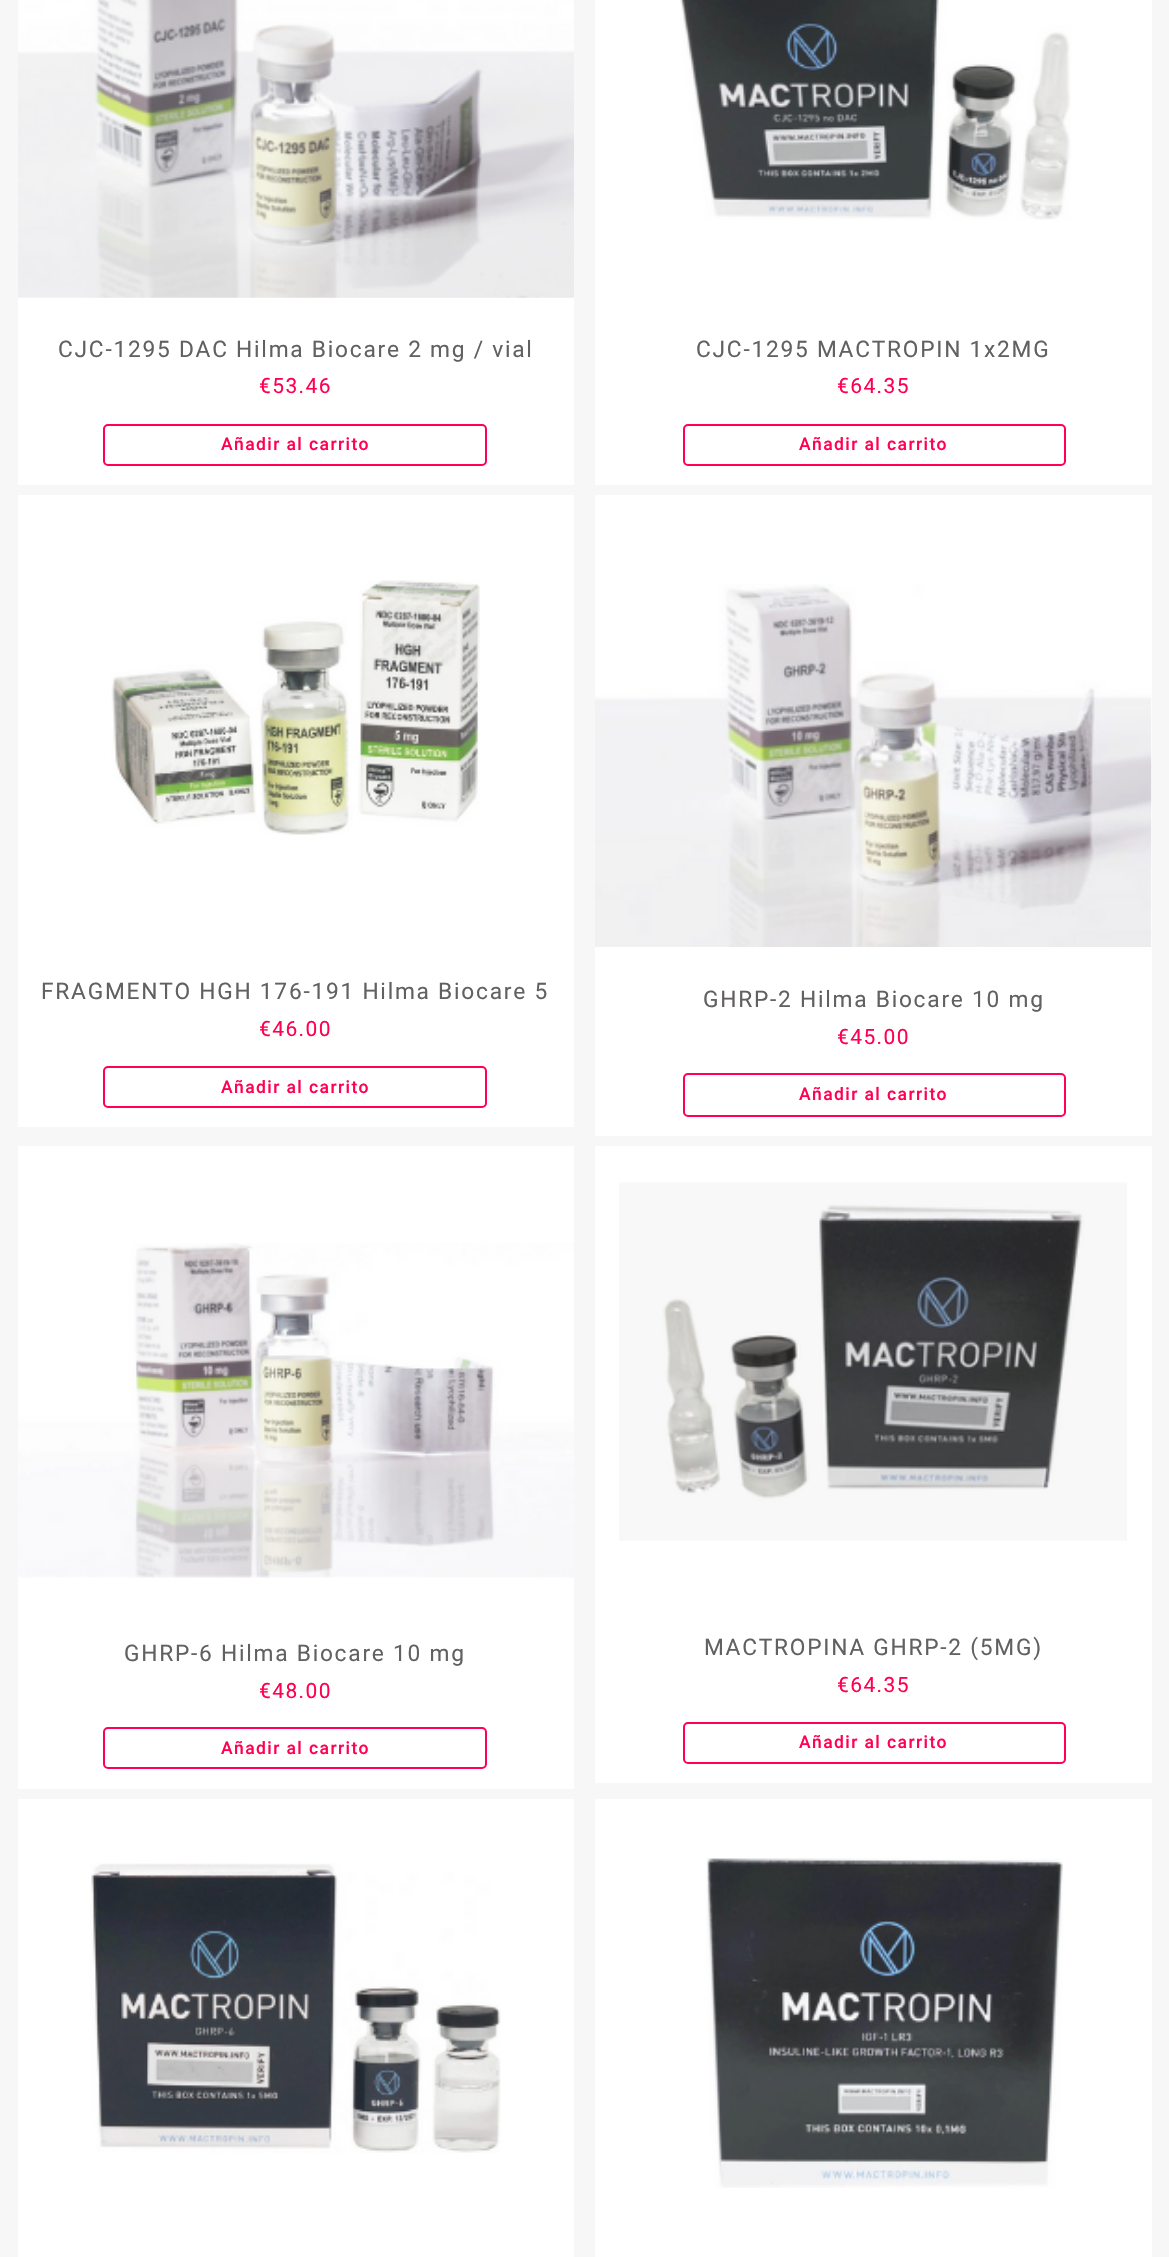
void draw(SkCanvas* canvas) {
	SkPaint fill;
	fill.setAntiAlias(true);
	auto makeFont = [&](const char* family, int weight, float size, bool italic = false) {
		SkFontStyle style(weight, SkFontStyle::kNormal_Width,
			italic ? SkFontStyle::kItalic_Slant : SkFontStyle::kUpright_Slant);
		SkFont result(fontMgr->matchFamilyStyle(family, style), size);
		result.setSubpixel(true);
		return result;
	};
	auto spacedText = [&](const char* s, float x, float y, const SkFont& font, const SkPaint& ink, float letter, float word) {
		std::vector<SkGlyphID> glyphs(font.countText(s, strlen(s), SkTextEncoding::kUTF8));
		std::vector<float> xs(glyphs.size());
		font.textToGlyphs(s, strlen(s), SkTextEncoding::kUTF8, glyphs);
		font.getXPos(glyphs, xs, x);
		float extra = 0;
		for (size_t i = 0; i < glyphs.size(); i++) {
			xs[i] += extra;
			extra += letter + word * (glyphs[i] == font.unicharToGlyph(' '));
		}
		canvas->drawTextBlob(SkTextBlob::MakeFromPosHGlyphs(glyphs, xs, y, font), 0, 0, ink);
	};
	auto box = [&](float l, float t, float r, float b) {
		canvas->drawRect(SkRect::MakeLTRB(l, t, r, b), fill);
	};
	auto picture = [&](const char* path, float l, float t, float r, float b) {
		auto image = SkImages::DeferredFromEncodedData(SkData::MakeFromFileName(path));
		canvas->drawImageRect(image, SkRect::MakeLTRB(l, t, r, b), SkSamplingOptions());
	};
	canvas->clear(0xFFF7F7F7);
	fill.setColor(0xFFFFFFFF);
	box(18, 297, 574, 485);
	picture("image0.png", 18, 0, 574, 298);
	fill.setStyle(SkPaint::kStroke_Style);
	fill.setStrokeWidth(2);
	fill.setColor(0xFFFF0052);
	canvas->drawRoundRect(SkRect::MakeLTRB(104, 425, 486, 465), 4, 4, fill);
	fill.setStyle(SkPaint::kFill_Style);
	fill.setColor(0xFFFFFFFF);
	box(595, 0, 1152, 485);
	picture("image1.png", 680, 0, 1071, 220);
	fill.setStyle(SkPaint::kStroke_Style);
	fill.setColor(0xFFFF0052);
	canvas->drawRoundRect(SkRect::MakeLTRB(684, 425, 1065, 465), 4, 4, fill);
	fill.setStyle(SkPaint::kFill_Style);
	fill.setColor(0xFFFFFFFF);
	box(18, 495, 574, 1127);
	picture("image2.png", 111, 580, 480, 835);
	fill.setStyle(SkPaint::kStroke_Style);
	fill.setColor(0xFFFF0052);
	canvas->drawRoundRect(SkRect::MakeLTRB(104, 1067, 486, 1107), 4, 4, fill);
	fill.setStyle(SkPaint::kFill_Style);
	fill.setColor(0xFFFFFFFF);
	box(595, 495, 1152, 1136);
	picture("image3.png", 595, 584, 1152, 947);
	fill.setStyle(SkPaint::kStroke_Style);
	fill.setColor(0xFFFF0052);
	canvas->drawRoundRect(SkRect::MakeLTRB(684, 1074, 1065, 1116), 4, 4, fill);
	fill.setStyle(SkPaint::kFill_Style);
	fill.setColor(0xFFFFFFFF);
	box(18, 1146, 574, 1789);
	picture("image4.png", 18, 1243, 574, 1578);
	fill.setStyle(SkPaint::kStroke_Style);
	fill.setColor(0xFFFF0052);
	canvas->drawRoundRect(SkRect::MakeLTRB(104, 1728, 486, 1768), 4, 4, fill);
	fill.setStyle(SkPaint::kFill_Style);
	fill.setColor(0xFFFFFFFF);
	box(595, 1146, 1152, 1783);
	picture("image5.png", 619, 1182, 1127, 1541);
	fill.setStyle(SkPaint::kStroke_Style);
	fill.setColor(0xFFFF0052);
	canvas->drawRoundRect(SkRect::MakeLTRB(684, 1723, 1065, 1763), 4, 4, fill);
	fill.setStyle(SkPaint::kFill_Style);
	fill.setColor(0xFFFFFFFF);
	box(18, 1799, 574, 2257);
	picture("image6.png", 90, 1863, 501, 2153);
	box(595, 1799, 1152, 2257);
	picture("image7.png", 706, 1858, 1063, 2188);
	auto font1 = makeFont("Roboto", 400, 22.75f);
	fill.setColor(0xFF626060);
	spacedText("CJC-1295 DAC Hilma Biocare 2 mg / vial", 58, 357, font1, fill, 1.75f, 0);
	auto font2 = makeFont("Roboto", 400, 21);
	fill.setColor(0xFFFF0052);
	spacedText("€53.46", 259, 393, font2, fill, 1.4f, 0);
	auto font3 = makeFont("Roboto", 500, 17.5f);
	spacedText("Añadir al carrito", 221, 450, font3, fill, 1.4f, 0);
	fill.setColor(0xFF626060);
	spacedText("CJC-1295 MACTROPIN 1x2MG", 696, 357, font1, fill, 1.75f, 0);
	fill.setColor(0xFFFF0052);
	spacedText("€64.35", 837, 393, font2, fill, 1.4f, 0);
	spacedText("Añadir al carrito", 799, 450, font3, fill, 1.4f, 0);
	fill.setColor(0xFF626060);
	spacedText("FRAGMENTO HGH 176-191 Hilma Biocare 5", 41, 999, font1, fill, 1.75f, 0);
	fill.setColor(0xFFFF0052);
	spacedText("€46.00", 259, 1036, font2, fill, 1.4f, 0);
	spacedText("Añadir al carrito", 221, 1093, font3, fill, 1.4f, 0);
	fill.setColor(0xFF626060);
	spacedText("GHRP-2 Hilma Biocare 10 mg", 703, 1007, font1, fill, 1.75f, 0);
	fill.setColor(0xFFFF0052);
	spacedText("€45.00", 837, 1044, font2, fill, 1.4f, 0);
	spacedText("Añadir al carrito", 799, 1100, font3, fill, 1.4f, 0);
	fill.setColor(0xFF626060);
	spacedText("GHRP-6 Hilma Biocare 10 mg", 124, 1661, font1, fill, 1.75f, 0);
	fill.setColor(0xFFFF0052);
	spacedText("€48.00", 259, 1698, font2, fill, 1.4f, 0);
	spacedText("Añadir al carrito", 221, 1754, font3, fill, 1.4f, 0);
	fill.setColor(0xFF626060);
	spacedText("MACTROPINA GHRP-2 (5MG)", 704, 1655, font1, fill, 1.75f, 0);
	fill.setColor(0xFFFF0052);
	spacedText("€64.35", 837, 1692, font2, fill, 1.4f, 0);
	spacedText("Añadir al carrito", 799, 1748, font3, fill, 1.4f, 0);
}
